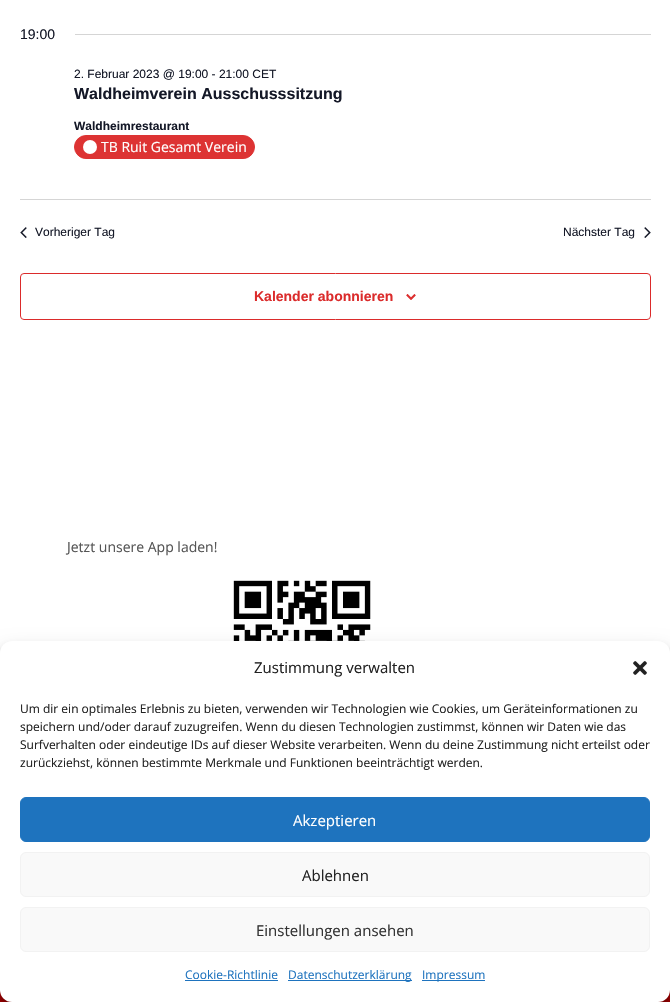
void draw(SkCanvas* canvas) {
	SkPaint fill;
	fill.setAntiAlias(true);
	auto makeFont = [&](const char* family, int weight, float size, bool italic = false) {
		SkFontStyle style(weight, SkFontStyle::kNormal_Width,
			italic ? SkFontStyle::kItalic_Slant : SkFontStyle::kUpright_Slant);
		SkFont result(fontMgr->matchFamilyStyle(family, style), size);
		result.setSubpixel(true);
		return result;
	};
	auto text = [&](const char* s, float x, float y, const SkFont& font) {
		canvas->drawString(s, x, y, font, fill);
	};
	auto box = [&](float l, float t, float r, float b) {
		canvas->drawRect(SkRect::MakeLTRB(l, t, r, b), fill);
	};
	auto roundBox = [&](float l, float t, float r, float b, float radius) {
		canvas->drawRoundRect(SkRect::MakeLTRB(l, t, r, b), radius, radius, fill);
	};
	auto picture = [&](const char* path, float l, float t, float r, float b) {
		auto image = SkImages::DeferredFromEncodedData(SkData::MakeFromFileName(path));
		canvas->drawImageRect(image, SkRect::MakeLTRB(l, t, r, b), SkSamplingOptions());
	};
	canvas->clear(0xFFFFFFFF);
	fill.setColor(0xFFD5D5D5);
	box(75, 34, 651, 35);
	fill.setColor(0xFFDD3333);
	canvas->drawRoundRect(SkRect::MakeLTRB(74.5f, 135.5f, 254.5f, 158.5f), 11.5f, 11.5f, fill);
	fill.setStyle(SkPaint::kStroke_Style);
	fill.setStrokeWidth(1);
	canvas->drawRoundRect(SkRect::MakeLTRB(74.5f, 135.5f, 254.5f, 158.5f), 11.5f, 11.5f, fill);
	fill.setStyle(SkPaint::kFill_Style);
	fill.setColor(0xFFFFFFFF);
	canvas->drawCircle(90, 147, 7, fill);
	fill.setColor(0xFFD5D5D5);
	box(20, 199, 651, 200);
	picture("image0.png", 20, 227, 27, 238);
	picture("image1.png", 644, 227, 651, 238);
	fill.setStyle(SkPaint::kStroke_Style);
	fill.setColor(0xFFDB2B2B);
	canvas->drawRoundRect(SkRect::MakeLTRB(20.5f, 273.5f, 650.5f, 319.5f), 3.5f, 3.5f, fill);
	picture("image2.png", 406, 294, 416, 300);
	picture("image3.png", 211, 580, 393, 641);
	fill.setStyle(SkPaint::kFill_Style);
	fill.setColor(0xFFAA0000);
	box(0, 990, 670, 1002);
	fill.setColor(0x3B000000);
	fill.setMaskFilter(SkMaskFilter::MakeBlur(kNormal_SkBlurStyle, 3));
	canvas->drawRoundRect(SkRect::MakeLTRB(0, 647, 670, 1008), 12, 12, fill);
	fill.setMaskFilter(nullptr);
	fill.setColor(0x30000000);
	fill.setMaskFilter(SkMaskFilter::MakeBlur(kNormal_SkBlurStyle, 10));
	canvas->drawRoundRect(SkRect::MakeLTRB(0, 651, 670, 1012), 12, 12, fill);
	fill.setMaskFilter(nullptr);
	fill.setColor(0xFF808080);
	fill.setMaskFilter(SkMaskFilter::MakeBlur(kNormal_SkBlurStyle, 2.5f));
	canvas->drawRoundRect(SkRect::MakeLTRB(600, 928, 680, 988), 2, 2, fill);
	fill.setMaskFilter(nullptr);
	fill.setColor(0xFFFFFFFF);
	roundBox(0, 641, 670, 1002, 12);
	picture("image4.png", 633, 661, 647, 675);
	fill.setColor(0xFF1E73BE);
	canvas->drawRoundRect(SkRect::MakeLTRB(20.5f, 797.5f, 649.5f, 841.5f), 5.5f, 5.5f, fill);
	fill.setStyle(SkPaint::kStroke_Style);
	canvas->drawRoundRect(SkRect::MakeLTRB(20.5f, 797.5f, 649.5f, 841.5f), 5.5f, 5.5f, fill);
	fill.setStyle(SkPaint::kFill_Style);
	fill.setColor(0xFFF9F9F9);
	canvas->drawRoundRect(SkRect::MakeLTRB(20.5f, 852.5f, 649.5f, 896.5f), 5.5f, 5.5f, fill);
	fill.setStyle(SkPaint::kStroke_Style);
	fill.setColor(0xFFF2F2F2);
	canvas->drawRoundRect(SkRect::MakeLTRB(20.5f, 852.5f, 649.5f, 896.5f), 5.5f, 5.5f, fill);
	fill.setStyle(SkPaint::kFill_Style);
	fill.setColor(0xFFF9F9F9);
	canvas->drawRoundRect(SkRect::MakeLTRB(20.5f, 907.5f, 649.5f, 951.5f), 5.5f, 5.5f, fill);
	fill.setStyle(SkPaint::kStroke_Style);
	fill.setColor(0xFFF2F2F2);
	canvas->drawRoundRect(SkRect::MakeLTRB(20.5f, 907.5f, 649.5f, 951.5f), 5.5f, 5.5f, fill);
	fill.setStyle(SkPaint::kFill_Style);
	fill.setColor(0xFF1E73BE);
	box(185, 980, 278, 981);
	box(288, 980, 412, 981);
	box(422, 980, 485, 981);
	auto font1 = makeFont("Liberation Sans", 400, 14);
	fill.setColor(0xFF141827);
	text("19:00", 20, 39, font1);
	auto font2 = makeFont("Liberation Sans", 400, 12);
	text("2. Februar 2023 @ 19:00 - 21:00 CET", 74, 78, font2);
	auto font3 = makeFont("Liberation Sans", 700, 16);
	text("Waldheimverein Ausschusssitzung", 74, 99, font3);
	auto font4 = makeFont("Liberation Sans", 700, 12);
	text("Waldheimrestaurant", 74, 130, font4);
	auto font5 = makeFont("Open Sans", 400, 14);
	fill.setColor(0xFFFFFFFF);
	text("TB Ruit Gesamt Verein", 101, 152, font5);
	fill.setColor(0xFF141827);
	text("Vorheriger Tag", 35, 236, font2);
	text("Nächster Tag", 563, 236, font2);
	auto font6 = makeFont("Liberation Sans", 700, 14);
	fill.setColor(0xFFDB2B2B);
	text("Kalender abonnieren", 254, 301, font6);
	fill.setColor(0xFF555555);
	text("Jetzt unsere App laden!", 67, 552, font5);
	auto font7 = makeFont("Open Sans", 400, 15);
	fill.setColor(0xFF222222);
	text("Zustimmung verwalten", 254, 673, font7);
	auto font8 = makeFont("Open Sans", 400, 12);
	text("Um dir ein optimales Erlebnis zu bieten, verwenden wir Technologien wie Cookies, um Geräteinformationen zu", 20, 713, font8);
	text("speichern und/oder darauf zuzugreifen. Wenn du diesen Technologien zustimmst, können wir Daten wie das", 20, 731, font8);
	text("Surfverhalten oder eindeutige IDs auf dieser Website verarbeiten. Wenn du deine Zustimmung nicht erteilst oder", 20, 749, font8);
	text("zurückziehst, können bestimmte Merkmale und Funktionen beeinträchtigt werden.", 20, 767, font8);
	fill.setColor(0xFFFFFFFF);
	text("Akzeptieren", 293, 826, font7);
	fill.setColor(0xFF222222);
	text("Ablehnen", 302, 881, font7);
	fill.setColor(0xFF333333);
	text("Einstellungen ansehen", 256, 936, font7);
	fill.setColor(0xFF1E73BE);
	text("Cookie-Richtlinie", 185, 979, font8);
	text("Datenschutzerklärung", 288, 979, font8);
	text("Impressum", 422, 979, font8);
}
